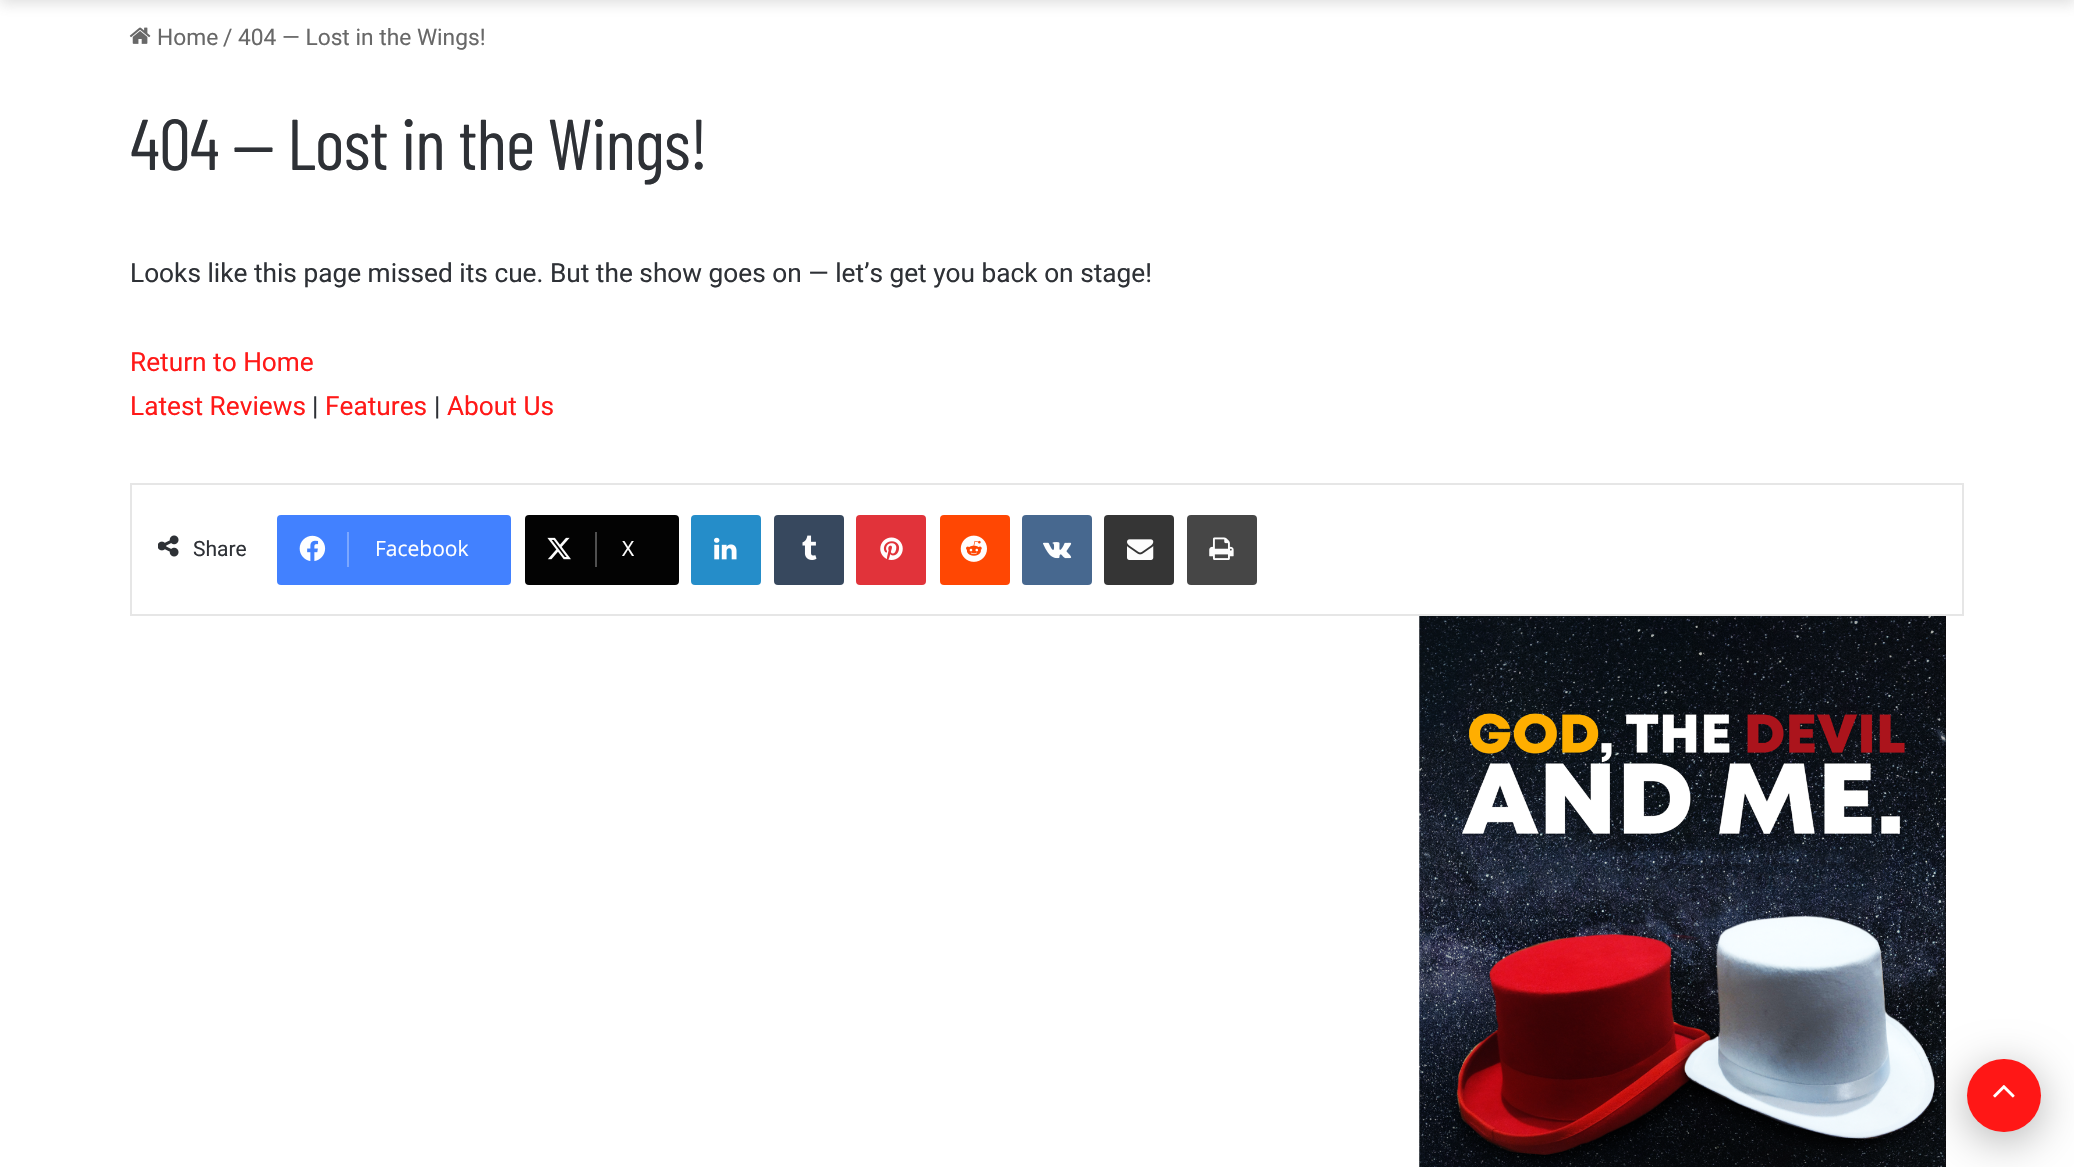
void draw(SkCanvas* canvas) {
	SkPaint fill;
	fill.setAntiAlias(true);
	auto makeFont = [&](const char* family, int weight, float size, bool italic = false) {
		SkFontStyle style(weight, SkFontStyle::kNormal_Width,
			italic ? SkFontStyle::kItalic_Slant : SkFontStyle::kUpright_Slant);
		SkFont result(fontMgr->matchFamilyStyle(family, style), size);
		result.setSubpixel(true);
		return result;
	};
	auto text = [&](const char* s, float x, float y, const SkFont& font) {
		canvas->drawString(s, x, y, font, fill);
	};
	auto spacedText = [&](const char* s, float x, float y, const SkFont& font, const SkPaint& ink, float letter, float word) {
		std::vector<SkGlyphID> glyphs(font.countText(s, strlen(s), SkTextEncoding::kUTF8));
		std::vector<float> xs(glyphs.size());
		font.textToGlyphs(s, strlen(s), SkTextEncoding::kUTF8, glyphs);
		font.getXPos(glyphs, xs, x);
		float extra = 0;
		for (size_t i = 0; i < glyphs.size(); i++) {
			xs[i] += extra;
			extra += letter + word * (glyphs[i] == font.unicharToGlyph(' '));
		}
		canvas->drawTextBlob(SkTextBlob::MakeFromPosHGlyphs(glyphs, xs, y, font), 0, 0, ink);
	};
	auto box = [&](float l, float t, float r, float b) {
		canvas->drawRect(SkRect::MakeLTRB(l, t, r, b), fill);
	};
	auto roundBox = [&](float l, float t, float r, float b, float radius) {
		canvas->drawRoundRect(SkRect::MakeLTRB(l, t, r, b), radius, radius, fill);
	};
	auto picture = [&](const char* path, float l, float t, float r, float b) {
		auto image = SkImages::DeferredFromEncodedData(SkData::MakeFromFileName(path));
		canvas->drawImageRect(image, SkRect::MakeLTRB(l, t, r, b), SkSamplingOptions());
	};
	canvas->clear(0xFFFFFFFF);
	fill.setColor(0x33636363);
	fill.setMaskFilter(SkMaskFilter::MakeBlur(kNormal_SkBlurStyle, 7));
	canvas->drawRect(SkRect::MakeLTRB(0, -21, 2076, 4), fill);
	fill.setMaskFilter(nullptr);
	picture("image0.png", 129, 27, 151, 44);
	fill.setStyle(SkPaint::kStroke_Style);
	fill.setStrokeWidth(2);
	fill.setColor(0xFFE6E6E6);
	canvas->drawRect(SkRect::MakeLTRB(131, 484, 1963, 615), fill);
	picture("image1.png", 158, 535, 179, 557);
	fill.setStyle(SkPaint::kFill_Style);
	fill.setColor(0xFF4281FF);
	roundBox(277, 515, 511, 585, 4);
	picture("image2.png", 299, 535, 326, 561);
	fill.setColor(0xFF7BA7FF);
	box(347, 532, 349, 567);
	fill.setColor(0xFF030303);
	roundBox(525, 515, 679, 585, 4);
	picture("image3.png", 547, 537, 571, 560);
	fill.setColor(0xFF4F4F4F);
	box(595, 532, 597, 567);
	fill.setColor(0xFF258DC9);
	roundBox(691, 515, 761, 585, 4);
	picture("image4.png", 714, 537, 737, 560);
	fill.setColor(0xFF37485E);
	roundBox(774, 515, 844, 585, 4);
	picture("image5.png", 802, 535, 817, 560);
	fill.setColor(0xFFE1333A);
	roundBox(856, 515, 926, 585, 4);
	picture("image6.png", 880, 537, 903, 560);
	fill.setColor(0xFFFF4703);
	roundBox(940, 515, 1010, 585, 4);
	picture("image7.png", 960, 535, 987, 562);
	fill.setColor(0xFF47688F);
	roundBox(1022, 515, 1092, 585, 4);
	picture("image8.png", 1043, 542, 1072, 559);
	fill.setColor(0xFF353535);
	roundBox(1104, 515, 1174, 585, 4);
	picture("image9.png", 1127, 539, 1154, 560);
	fill.setColor(0xFF464646);
	roundBox(1187, 515, 1257, 585, 4);
	picture("image10.png", 1209, 537, 1234, 560);
	picture("image11.png", 1419, 616, 1946, 1167);
	fill.setColor(0x4D000000);
	fill.setMaskFilter(SkMaskFilter::MakeBlur(kNormal_SkBlurStyle, 22));
	canvas->drawRoundRect(SkRect::MakeLTRB(1967, 1068, 2041, 1141), 36.5f, 36.5f, fill);
	fill.setMaskFilter(nullptr);
	fill.setColor(0xFFFF1716);
	roundBox(1967, 1059, 2041, 1132, 36.5f);
	picture("image12.png", 1993, 1085, 2015, 1098);
	auto font1 = makeFont("Roboto", 400, 22.75f);
	fill.setColor(0xFF686868);
	text("Home", 157, 45, font1);
	text("/", 223, 45, font1);
	text("404 — Lost in the Wings!", 238, 45, font1);
	auto font2 = makeFont("Barlow Condensed", 400, 71.75f);
	fill.setColor(0xFF2E3136);
	spacedText("404 — Lost in the Wings!", 130, 170, font2, fill, -0.9f, 0);
	auto font3 = makeFont("Roboto", 400, 26.25f);
	text("Looks like this page missed its cue. But the show goes on — let’s get you back on stage!", 130, 282, font3);
	fill.setColor(0xFFFF1918);
	text("Return to Home", 130, 371, font3);
	text("Latest Reviews", 130, 415, font3);
	fill.setColor(0xFF2E3136);
	text("|", 312, 415, font3);
	fill.setColor(0xFFFF1918);
	text("Features", 325, 415, font3);
	fill.setColor(0xFF2E3136);
	text("|", 434, 415, font3);
	fill.setColor(0xFFFF1918);
	text("About Us", 447, 415, font3);
	auto font4 = makeFont("Roboto", 400, 21);
	fill.setColor(0xFF2E3136);
	text("Share", 193, 556, font4);
	auto font5 = makeFont("Open Sans", 400, 21);
	fill.setColor(0xFFFFFFFF);
	text("Facebook", 375, 556, font5);
	text("X", 622, 556, font5);
}
